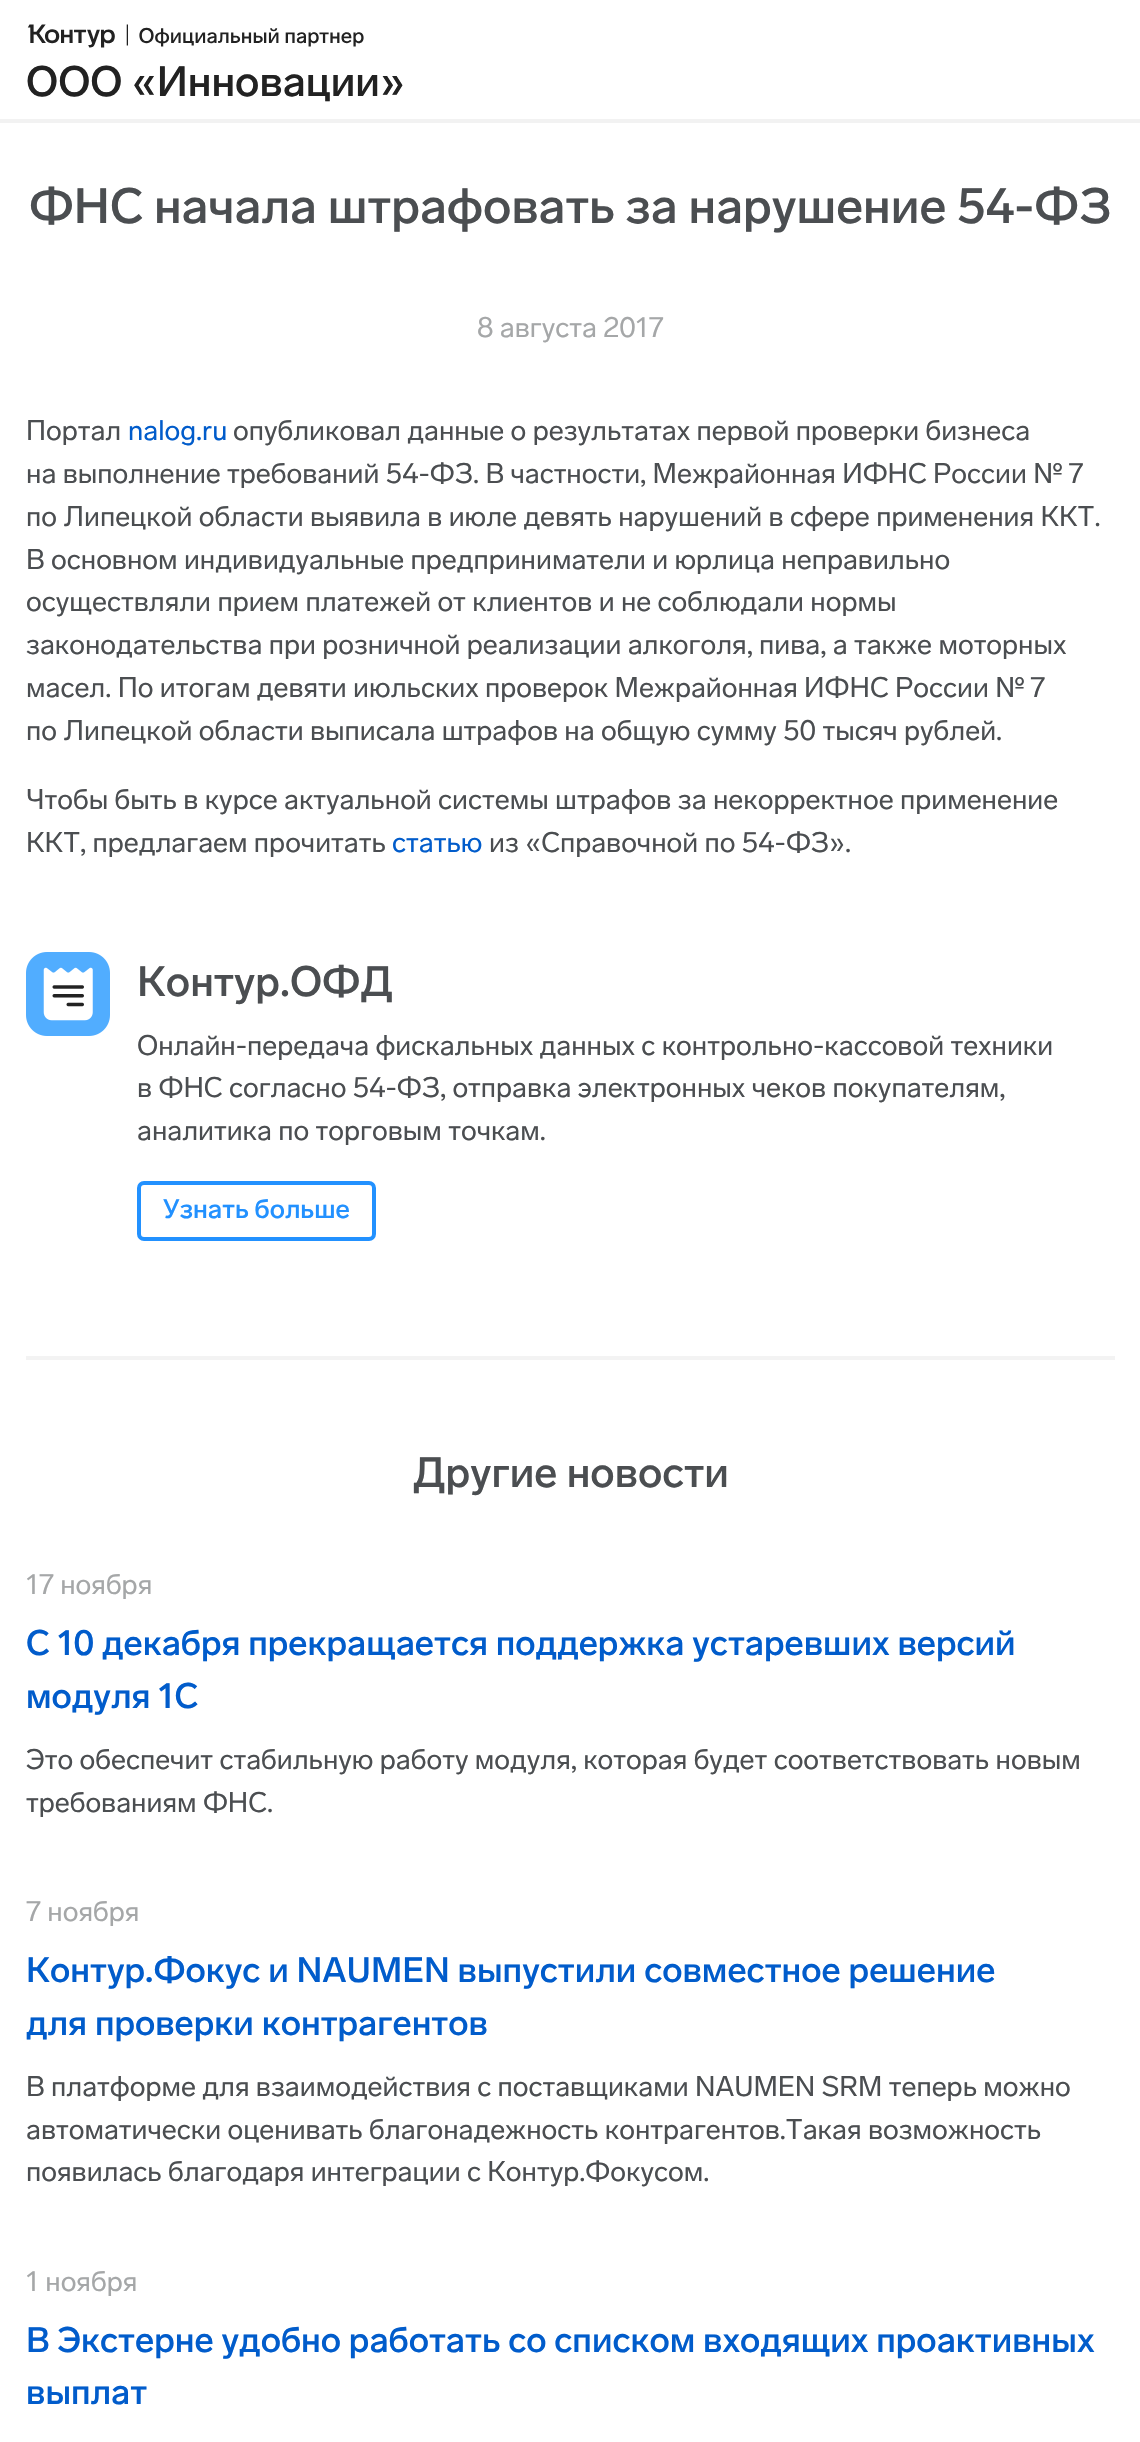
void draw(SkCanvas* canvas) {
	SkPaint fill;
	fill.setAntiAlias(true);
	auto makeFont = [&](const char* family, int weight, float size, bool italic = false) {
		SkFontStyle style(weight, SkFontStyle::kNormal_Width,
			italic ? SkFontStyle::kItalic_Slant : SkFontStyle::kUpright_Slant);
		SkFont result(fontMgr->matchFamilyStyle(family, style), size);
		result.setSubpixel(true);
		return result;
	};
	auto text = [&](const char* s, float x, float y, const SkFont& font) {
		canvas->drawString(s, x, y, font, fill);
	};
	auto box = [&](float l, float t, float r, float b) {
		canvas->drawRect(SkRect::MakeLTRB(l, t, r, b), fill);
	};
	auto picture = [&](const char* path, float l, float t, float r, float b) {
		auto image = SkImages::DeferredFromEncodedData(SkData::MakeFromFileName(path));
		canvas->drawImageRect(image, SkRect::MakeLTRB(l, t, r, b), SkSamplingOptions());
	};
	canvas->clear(0xFFFFFFFF);
	fill.setColor(0xFFF2F2F2);
	box(0, 119, 1140, 123);
	picture("image0.png", 27, 24, 364, 48);
	picture("image1.png", 26, 952, 110, 1036);
	fill.setStyle(SkPaint::kStroke_Style);
	fill.setStrokeWidth(4);
	fill.setColor(0xFF2291FF);
	canvas->drawRoundRect(SkRect::MakeLTRB(139, 1183, 374, 1239), 5, 5, fill);
	fill.setStyle(SkPaint::kFill_Style);
	fill.setColor(0xFFF3F3F3);
	box(26, 1356, 1115, 1360);
	auto font1 = makeFont("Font", 500, 42);
	fill.setColor(0xFF222222);
	text("ООО «Инновации»", 26, 96, font1);
	auto font2 = makeFont("Font", 500, 49);
	fill.setColor(0xFF4B4E51);
	text("ФНС начала штрафовать за нарушение 54-ФЗ", 29, 223, font2);
	auto font3 = makeFont("Font", 400, 28);
	fill.setColor(0xFFA5A7A8);
	text("8 августа 2017", 477, 337, font3);
	fill.setColor(0xFF4B4E51);
	text("Портал", 26, 440, font3);
	fill.setColor(0xFF015CCB);
	text("nalog.ru", 128, 440, font3);
	fill.setColor(0xFF4B4E51);
	text("опубликовал данные о результатах первой проверки бизнеса", 233, 440, font3);
	text("на выполнение требований 54-ФЗ. В частности, Межрайонная ИФНС России № 7", 26, 483, font3);
	text("по Липецкой области выявила в июле девять нарушений в сфере применения ККТ.", 26, 526, font3);
	text("В основном индивидуальные предприниматели и юрлица неправильно", 26, 569, font3);
	text("осуществляли прием платежей от клиентов и не соблюдали нормы", 26, 611, font3);
	text("законодательства при розничной реализации алкоголя, пива, а также моторных", 26, 654, font3);
	text("масел. По итогам девяти июльских проверок Межрайонная ИФНС России № 7", 26, 697, font3);
	text("по Липецкой области выписала штрафов на общую сумму 50 тысяч рублей.", 26, 740, font3);
	text("Чтобы быть в курсе актуальной системы штрафов за некорректное применение", 26, 809, font3);
	text("ККТ, предлагаем прочитать", 26, 852, font3);
	fill.setColor(0xFF015CCB);
	text("статью", 392, 852, font3);
	fill.setColor(0xFF4B4E51);
	text("из «Справочной по 54-ФЗ».", 489, 852, font3);
	text("Контур.ОФД", 137, 996, font1);
	text("Онлайн-передача фискальных данных с контрольно-кассовой техники", 137, 1055, font3);
	text("в ФНС согласно 54-ФЗ, отправка электронных чеков покупателям,", 137, 1097, font3);
	text("аналитика по торговым точкам.", 137, 1140, font3);
	auto font4 = makeFont("Font", 500, 26.25f);
	fill.setColor(0xFF2291FF);
	text("Узнать больше", 163, 1218, font4);
	fill.setColor(0xFF4B4E51);
	text("Другие новости", 413, 1487, font1);
	fill.setColor(0xFFA5A7A8);
	text("17 ноября", 26, 1594, font3);
	auto font5 = makeFont("Font", 500, 35);
	fill.setColor(0xFF015CCB);
	text("С 10 декабря прекращается поддержка устаревших версий", 26, 1655, font5);
	text("модуля 1С", 26, 1708, font5);
	fill.setColor(0xFF4B4E51);
	text("Это обеспечит стабильную работу модуля, которая будет соответствовать новым", 26, 1769, font3);
	text("требованиям ФНС.", 26, 1812, font3);
	fill.setColor(0xFFA5A7A8);
	text("7 ноября", 26, 1921, font3);
	fill.setColor(0xFF015CCB);
	text("Контур.Фокус и NAUMEN выпустили совместное решение", 26, 1982, font5);
	text("для проверки контрагентов", 26, 2035, font5);
	fill.setColor(0xFF4B4E51);
	text("В платформе для взаимодействия с поставщиками NAUMEN SRM теперь можно", 26, 2096, font3);
	text("автоматически оценивать благонадежность контрагентов.Такая возможность", 26, 2139, font3);
	text("появилась благодаря интеграции с Контур.Фокусом.", 26, 2181, font3);
	fill.setColor(0xFFA5A7A8);
	text("1 ноября", 26, 2291, font3);
	fill.setColor(0xFF015CCB);
	text("В Экстерне удобно работать со списком входящих проактивных", 26, 2352, font5);
	text("выплат", 26, 2404, font5);
}
